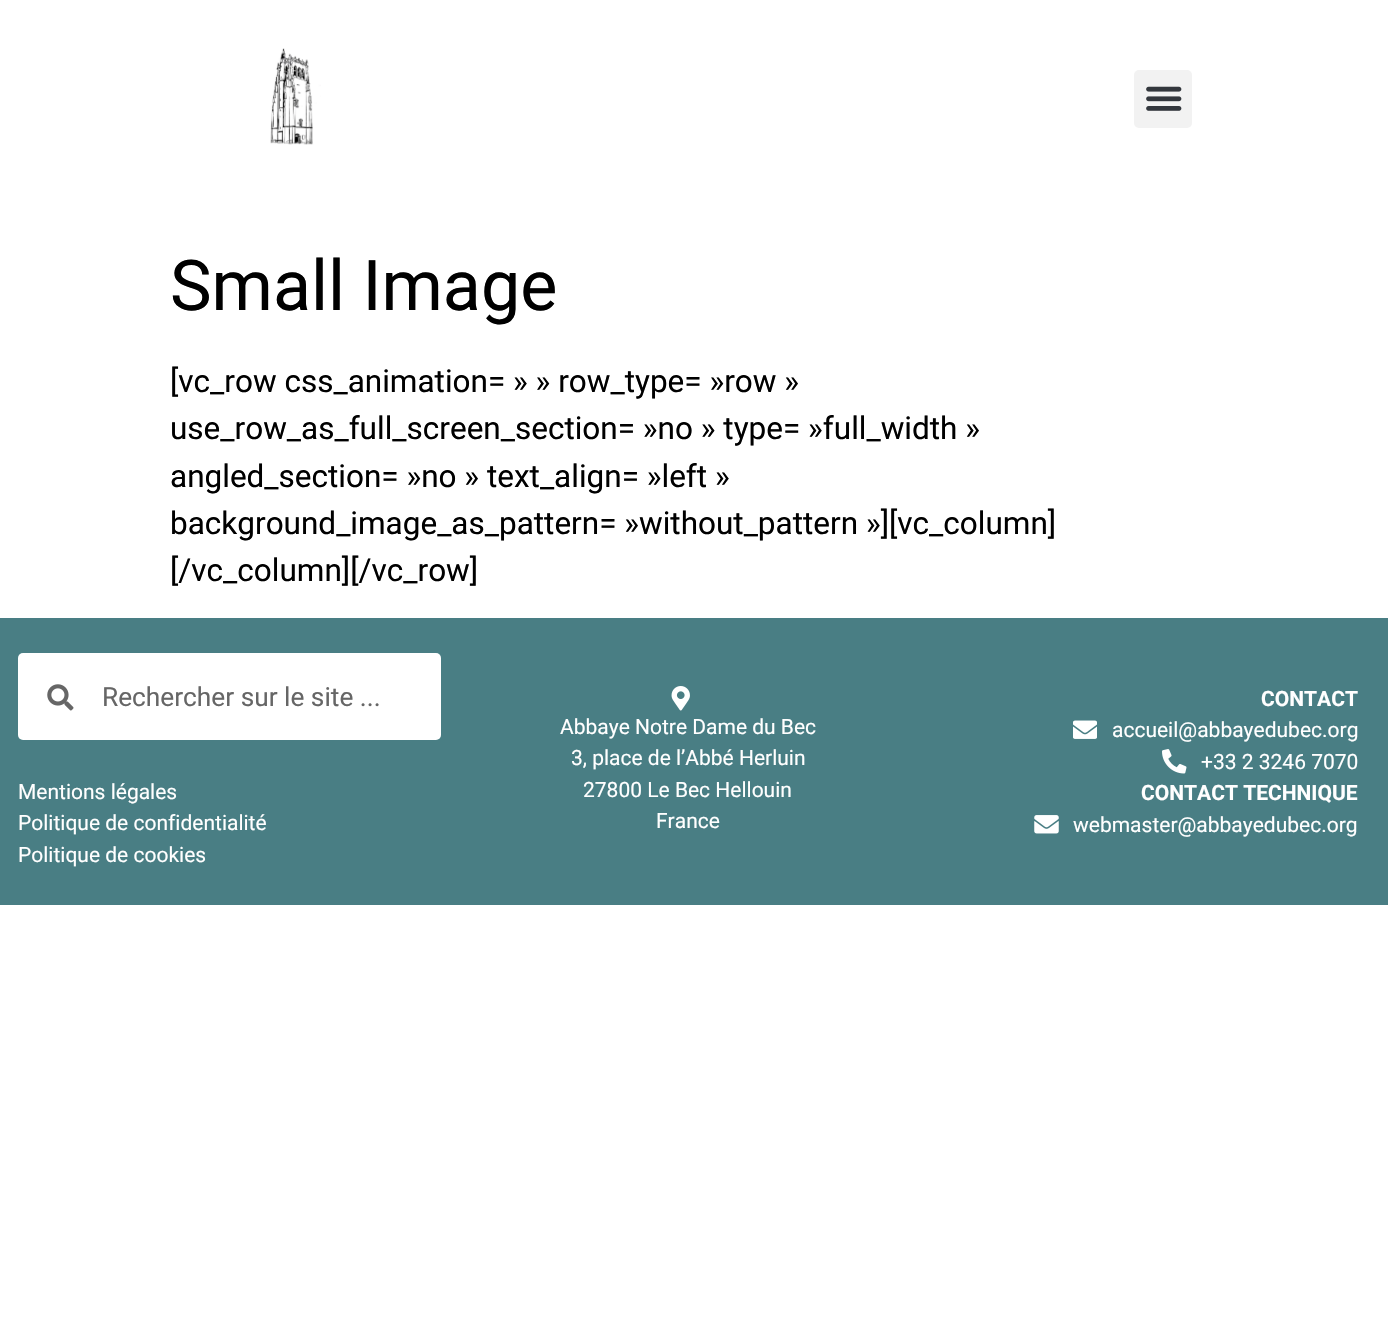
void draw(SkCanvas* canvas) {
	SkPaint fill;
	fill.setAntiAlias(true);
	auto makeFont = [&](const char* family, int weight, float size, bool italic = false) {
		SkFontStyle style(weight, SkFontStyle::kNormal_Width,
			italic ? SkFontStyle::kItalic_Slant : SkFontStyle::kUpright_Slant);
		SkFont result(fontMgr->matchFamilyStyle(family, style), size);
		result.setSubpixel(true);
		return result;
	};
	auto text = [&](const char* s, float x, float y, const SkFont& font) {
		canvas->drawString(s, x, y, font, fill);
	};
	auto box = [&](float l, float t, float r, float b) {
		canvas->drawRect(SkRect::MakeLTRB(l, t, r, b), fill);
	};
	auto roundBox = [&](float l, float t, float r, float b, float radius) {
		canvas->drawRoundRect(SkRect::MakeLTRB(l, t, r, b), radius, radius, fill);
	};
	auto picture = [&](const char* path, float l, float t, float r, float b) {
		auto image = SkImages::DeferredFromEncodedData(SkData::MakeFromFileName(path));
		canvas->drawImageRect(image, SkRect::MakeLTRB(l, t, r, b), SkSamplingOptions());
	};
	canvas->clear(0xFFFFFFFF);
	picture("image0.png", 270, 48, 321, 145);
	fill.setColor(0xFFF2F2F2);
	roundBox(1134, 70, 1192, 128, 5);
	picture("image1.png", 1146, 86, 1182, 111);
	fill.setColor(0xFF497E84);
	box(0, 618, 1388, 905);
	fill.setColor(0xFFFFFFFF);
	roundBox(18, 653, 441, 740, 5);
	picture("image2.png", 47, 684, 74, 711);
	picture("image3.png", 671, 686, 690, 711);
	picture("image4.png", 1073, 720, 1097, 739);
	picture("image5.png", 1162, 749, 1187, 774);
	picture("image6.png", 1034, 815, 1059, 834);
	auto font1 = makeFont("Roboto", 400, 70);
	fill.setColor(0xFF000000);
	text("Small Image", 170, 310, font1);
	auto font2 = makeFont("Roboto", 400, 31.5f);
	text("[vc_row css_animation= » » row_type= »row »", 170, 392, font2);
	text("use_row_as_full_screen_section= »no » type= »full_width »", 170, 439, font2);
	text("angled_section= »no » text_align= »left »", 170, 487, font2);
	text("background_image_as_pattern= »without_pattern »][vc_column]", 170, 534, font2);
	text("[/vc_column][/vc_row]", 170, 581, font2);
	auto font3 = makeFont("Roboto", 400, 26.25f);
	fill.setColor(0xFF666666);
	text("Rechercher sur le site ...", 102, 706, font3);
	auto font4 = makeFont("Roboto", 400, 21);
	fill.setColor(0xFFFFFFFF);
	text("Mentions légales", 18, 799, font4);
	text("Politique de confidentialité", 18, 830, font4);
	text("Politique de cookies", 18, 862, font4);
	text("Abbaye Notre Dame du Bec", 560, 734, font4);
	text("3, place de l’Abbé Herluin", 571, 765, font4);
	text("27800 Le Bec Hellouin", 583, 797, font4);
	text("France", 656, 828, font4);
	auto font5 = makeFont("Roboto", 700, 21);
	text("CONTACT", 1261, 706, font5);
	text("accueil@abbayedubec.org", 1112, 737, font4);
	text("+33 2 3246 7070", 1201, 769, font4);
	text("CONTACT TECHNIQUE", 1141, 800, font5);
	text("webmaster@abbayedubec.org", 1073, 832, font4);
}
